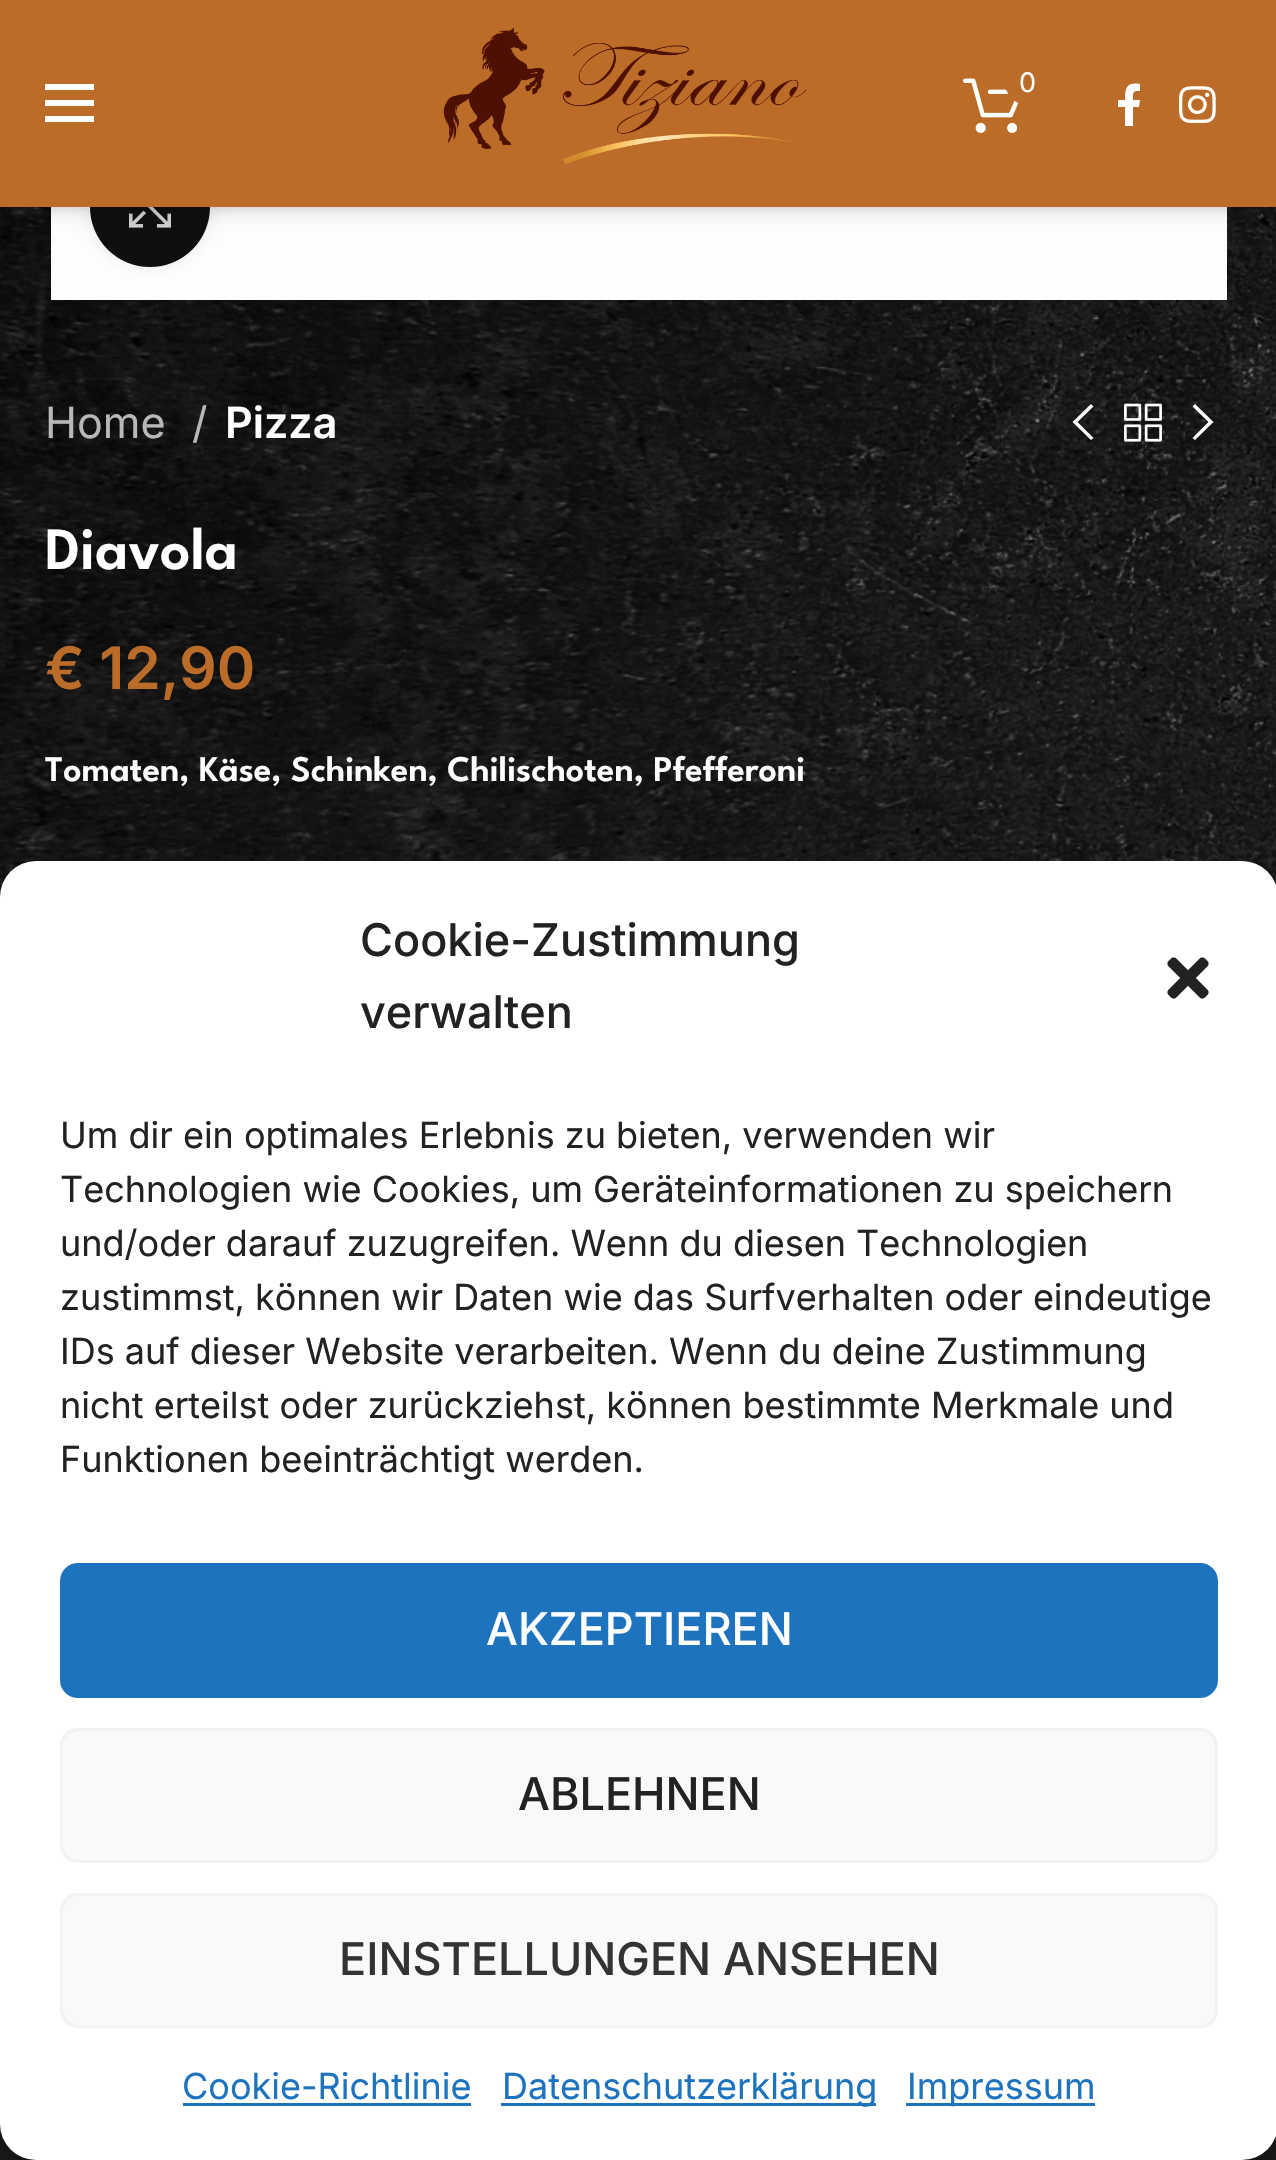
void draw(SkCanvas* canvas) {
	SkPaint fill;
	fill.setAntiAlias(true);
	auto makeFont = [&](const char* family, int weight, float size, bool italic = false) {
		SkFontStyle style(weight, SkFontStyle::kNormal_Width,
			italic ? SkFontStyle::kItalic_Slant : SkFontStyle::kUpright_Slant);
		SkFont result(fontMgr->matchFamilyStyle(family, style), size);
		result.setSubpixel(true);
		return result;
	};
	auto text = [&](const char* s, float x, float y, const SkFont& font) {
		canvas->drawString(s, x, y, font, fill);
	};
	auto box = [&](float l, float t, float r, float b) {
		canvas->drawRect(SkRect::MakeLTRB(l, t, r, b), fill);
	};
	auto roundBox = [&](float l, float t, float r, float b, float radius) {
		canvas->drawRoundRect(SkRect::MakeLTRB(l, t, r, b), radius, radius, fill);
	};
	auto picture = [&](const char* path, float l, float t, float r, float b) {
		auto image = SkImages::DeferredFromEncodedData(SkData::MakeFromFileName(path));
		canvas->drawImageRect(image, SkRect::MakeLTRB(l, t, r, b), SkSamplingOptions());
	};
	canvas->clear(0xFF1A1A1A);
	picture("image3.png", 0, 207, 1276, 897);
	fill.setColor(0xFFFEFEFE);
	box(51, 207, 1227, 300);
	fill.setColor(0x14000000);
	fill.setMaskFilter(SkMaskFilter::MakeBlur(kNormal_SkBlurStyle, 7.5f));
	canvas->drawRoundRect(SkRect::MakeLTRB(90, 147, 210, 267), 60, 60, fill);
	fill.setMaskFilter(nullptr);
	fill.setColor(0xFF0F0F0F);
	canvas->drawCircle(150, 207, 60, fill);
	picture("image4.png", 129, 207, 171, 228);
	fill.setColor(0x1A000000);
	fill.setMaskFilter(SkMaskFilter::MakeBlur(kNormal_SkBlurStyle, 4.5f));
	canvas->drawRect(SkRect::MakeLTRB(0, 3, 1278, 210), fill);
	fill.setMaskFilter(nullptr);
	fill.setMaskFilter(SkMaskFilter::MakeBlur(kNormal_SkBlurStyle, 12));
	canvas->drawRect(SkRect::MakeLTRB(0, 3, 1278, 210), fill);
	fill.setMaskFilter(nullptr);
	fill.setColor(0xFFBB6C29);
	box(0, 0, 1276, 207);
	fill.setColor(0xFFFFFFFF);
	canvas->drawPath(SkPathBuilder().moveTo(45, 84).lineTo(94, 84).lineTo(94, 90).lineTo(45, 90).close().moveTo(45, 100).lineTo(94, 100).lineTo(94, 106).lineTo(45, 106).close().moveTo(45, 116).lineTo(94, 116).lineTo(94, 122).lineTo(45, 122).close().detach(), fill);
	picture("image0.png", 443, 27, 807, 164);
	picture("image1.png", 963, 78, 1019, 133);
	fill.setColor(0xFFBB6C29);
	canvas->drawCircle(1027.5f, 82.5f, 22.5f, fill);
	fill.setColor(0xFFFFFFFF);
	canvas->drawPath(SkPathBuilder().moveTo(1139, 107).lineTo(1140, 100).lineTo(1133, 100).cubicTo(1133, 92, 1132, 91, 1140, 91).lineTo(1140, 84).cubicTo(1127, 82, 1125, 87, 1125, 100).lineTo(1118, 100).lineTo(1118, 107).lineTo(1125, 107).lineTo(1125, 126).lineTo(1133, 126).lineTo(1133, 107).close().detach(), fill);
	picture("image2.png", 1179, 86, 1216, 123);
	canvas->drawPath(SkPathBuilder().moveTo(1093.5f, 406.5f).lineTo(1077.5f, 422).lineTo(1093.5f, 438).lineTo(1091, 440).lineTo(1072.5f, 422).lineTo(1091, 404).close().detach(), fill);
	picture("image5.png", 1124, 403, 1162, 442);
	canvas->drawPath(SkPathBuilder().moveTo(1195, 404).lineTo(1213.5f, 422).lineTo(1195, 440).lineTo(1192.5f, 438).lineTo(1208.5f, 422).lineTo(1192.5f, 406.5f).close().detach(), fill);
	fill.setColor(0x3B000000);
	fill.setMaskFilter(SkMaskFilter::MakeBlur(kNormal_SkBlurStyle, 9));
	canvas->drawRoundRect(SkRect::MakeLTRB(0, 879, 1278, 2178), 36, 36, fill);
	fill.setMaskFilter(nullptr);
	fill.setColor(0xFFFFFFFF);
	roundBox(0, 861, 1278, 2160, 36);
	picture("image6.png", 1167, 957, 1209, 999);
	fill.setColor(0xFF1E73BE);
	canvas->drawRoundRect(SkRect::MakeLTRB(61.5f, 1564.5f, 1216.5f, 1696.5f), 16.5f, 16.5f, fill);
	fill.setStyle(SkPaint::kStroke_Style);
	fill.setStrokeWidth(3);
	canvas->drawRoundRect(SkRect::MakeLTRB(61.5f, 1564.5f, 1216.5f, 1696.5f), 16.5f, 16.5f, fill);
	fill.setStyle(SkPaint::kFill_Style);
	fill.setColor(0xFFF9F9F9);
	canvas->drawRoundRect(SkRect::MakeLTRB(61.5f, 1729.5f, 1216.5f, 1861.5f), 16.5f, 16.5f, fill);
	fill.setStyle(SkPaint::kStroke_Style);
	fill.setColor(0xFFF2F2F2);
	canvas->drawRoundRect(SkRect::MakeLTRB(61.5f, 1729.5f, 1216.5f, 1861.5f), 16.5f, 16.5f, fill);
	fill.setStyle(SkPaint::kFill_Style);
	fill.setColor(0xFFF9F9F9);
	canvas->drawRoundRect(SkRect::MakeLTRB(61.5f, 1894.5f, 1216.5f, 2026.5f), 16.5f, 16.5f, fill);
	fill.setStyle(SkPaint::kStroke_Style);
	fill.setColor(0xFFF2F2F2);
	canvas->drawRoundRect(SkRect::MakeLTRB(61.5f, 1894.5f, 1216.5f, 2026.5f), 16.5f, 16.5f, fill);
	fill.setStyle(SkPaint::kFill_Style);
	fill.setColor(0xFF1E73BE);
	box(183, 2103, 471, 2106);
	box(501, 2103, 876, 2106);
	box(906, 2103, 1095, 2106);
	auto font1 = makeFont("Inter", 400, 27);
	fill.setColor(0xFFFFFFFF);
	text("0", 1019, 92, font1);
	auto font2 = makeFont("Inter", 400, 43);
	fill.setColor(0xFFB8B8B8);
	text("Home", 45, 438, font2);
	text("/", 192, 438, font2);
	auto font3 = makeFont("Inter", 600, 43);
	fill.setColor(0xFFFFFFFF);
	text("Pizza", 225, 438, font3);
	auto font4 = makeFont("League Spartan", 600, 60);
	text("Diavola", 45, 569, font4);
	auto font5 = makeFont("Inter", 600, 58.5f);
	fill.setColor(0xFFBB6C29);
	text("€ 12,90", 45, 689, font5);
	auto font6 = makeFont("League Spartan", 600, 36);
	fill.setColor(0xFFFFFFFF);
	text("Tomaten, Käse, Schinken, Chilischoten, Pfefferoni", 45, 781, font6);
	auto font7 = makeFont("Inter", 500, 45);
	fill.setColor(0xFF222222);
	text("Cookie-Zustimmung", 360, 956, font7);
	text("verwalten", 360, 1028, font7);
	auto font8 = makeFont("Inter", 400, 36);
	text("Um dir ein optimales Erlebnis zu bieten, verwenden wir", 60, 1148, font8);
	text("Technologien wie Cookies, um Geräteinformationen zu speichern", 60, 1202, font8);
	text("und/oder darauf zuzugreifen. Wenn du diesen Technologien", 60, 1256, font8);
	text("zustimmst, können wir Daten wie das Surfverhalten oder eindeutige", 60, 1310, font8);
	text("IDs auf dieser Website verarbeiten. Wenn du deine Zustimmung", 60, 1364, font8);
	text("nicht erteilst oder zurückziehst, können bestimmte Merkmale und", 60, 1418, font8);
	text("Funktionen beeinträchtigt werden.", 60, 1472, font8);
	fill.setColor(0xFFFFFFFF);
	text("AKZEPTIEREN", 486, 1645, font7);
	fill.setColor(0xFF222222);
	text("ABLEHNEN", 518, 1810, font7);
	fill.setColor(0xFF333333);
	text("EINSTELLUNGEN ANSEHEN", 339, 1975, font7);
	fill.setColor(0xFF1E73BE);
	text("Cookie-Richtlinie", 182, 2099, font8);
	text("Datenschutzerklärung", 502, 2099, font8);
	text("Impressum", 907, 2099, font8);
}
